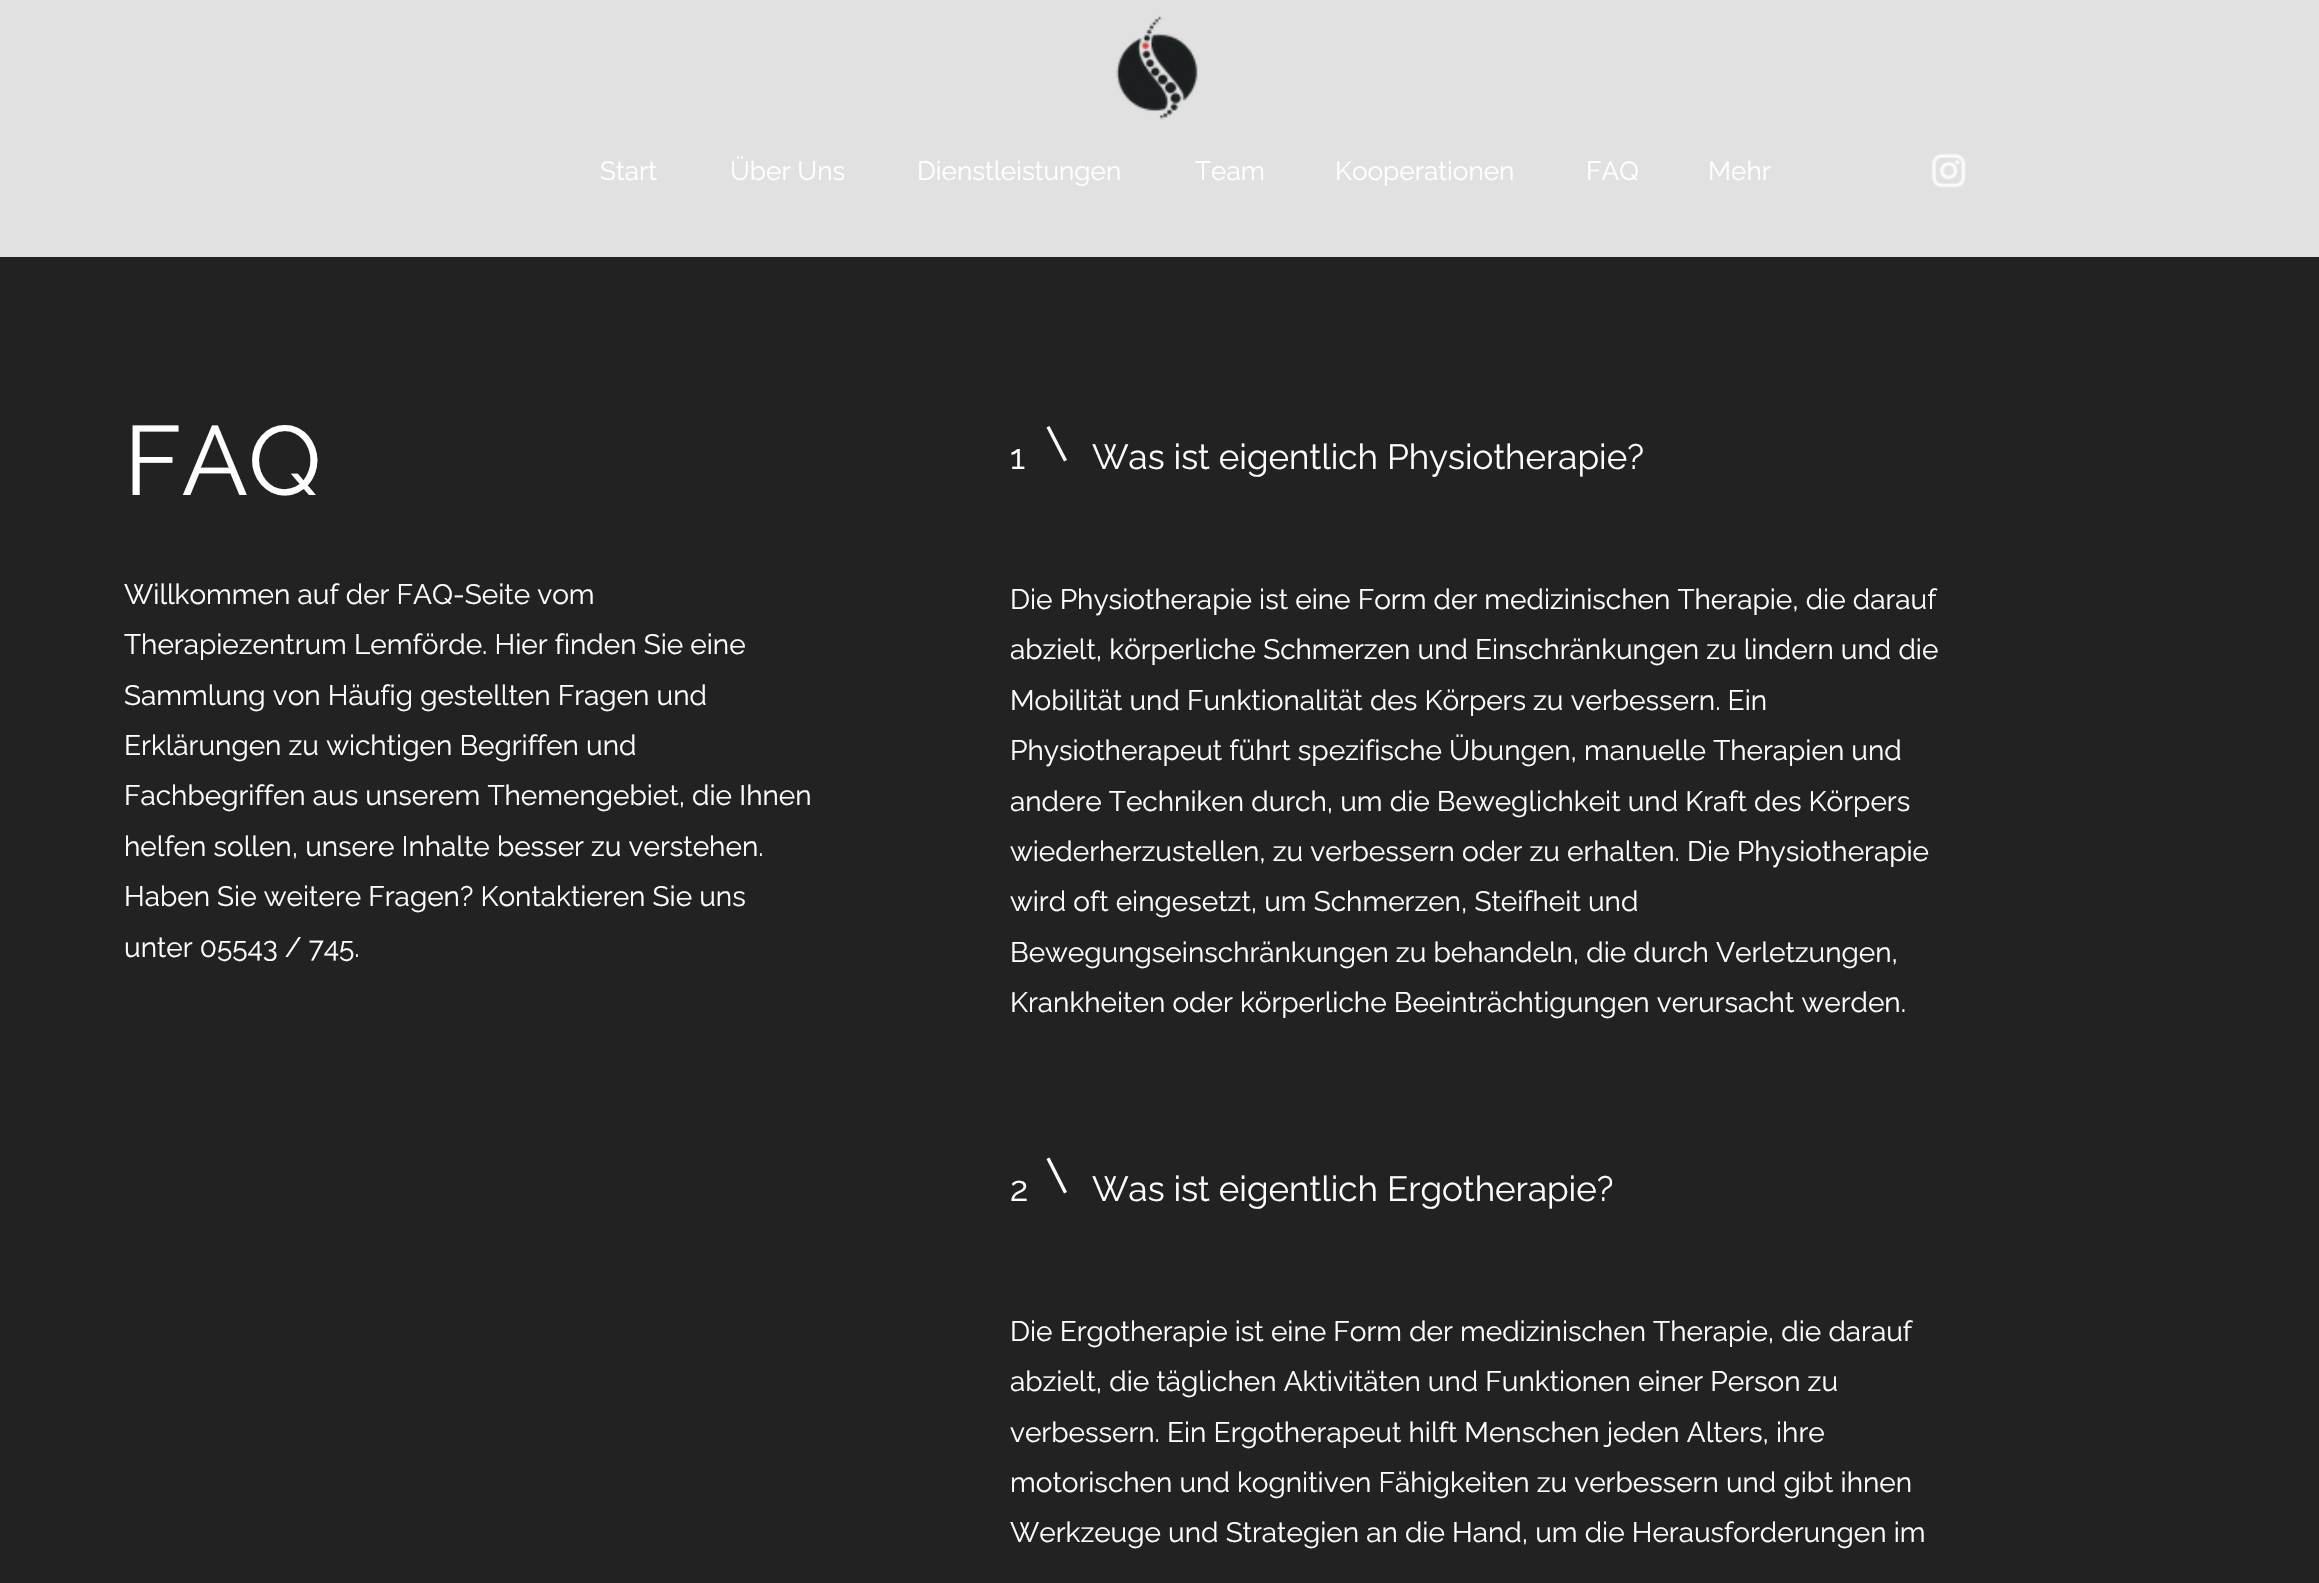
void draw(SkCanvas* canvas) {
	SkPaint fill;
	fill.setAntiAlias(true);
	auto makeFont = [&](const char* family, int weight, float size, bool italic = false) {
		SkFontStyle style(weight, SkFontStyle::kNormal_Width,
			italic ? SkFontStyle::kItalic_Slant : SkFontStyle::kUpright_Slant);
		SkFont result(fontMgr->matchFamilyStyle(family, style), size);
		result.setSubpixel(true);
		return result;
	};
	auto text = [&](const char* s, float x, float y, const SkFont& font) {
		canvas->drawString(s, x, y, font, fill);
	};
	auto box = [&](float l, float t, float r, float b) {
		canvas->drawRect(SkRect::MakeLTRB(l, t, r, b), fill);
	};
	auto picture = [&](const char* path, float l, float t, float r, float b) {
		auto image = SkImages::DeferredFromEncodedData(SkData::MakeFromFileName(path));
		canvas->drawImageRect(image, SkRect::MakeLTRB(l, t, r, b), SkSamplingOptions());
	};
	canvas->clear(0xFFE1E1E1);
	picture("image0.png", 1116, 15, 1198, 120);
	picture("image1.png", 1931, 153, 1966, 188);
	fill.setColor(0xFF222222);
	box(0, 257, 2319, 1583);
	fill.setColor(0xFFFFFFFF);
	canvas->drawPath(SkPathBuilder().moveTo(1046.5f, 427.5f).lineTo(1049.5f, 426).lineTo(1067, 460).lineTo(1064, 461.5f).close().detach(), fill);
	canvas->drawPath(SkPathBuilder().moveTo(1046.5f, 1159).lineTo(1049.5f, 1157.5f).lineTo(1067, 1192).lineTo(1064, 1193.5f).close().detach(), fill);
	auto font1 = makeFont("Raleway", 400, 26.25f);
	text("Start", 600, 180, font1);
	text("Über Uns", 730, 180, font1);
	text("Dienstleistungen", 917, 180, font1);
	text("Team", 1195, 180, font1);
	text("Kooperationen", 1335, 180, font1);
	text("FAQ", 1586, 180, font1);
	text("Mehr", 1708, 180, font1);
	auto font2 = makeFont("Raleway", 400, 98);
	text("FAQ", 124, 495, font2);
	auto font3 = makeFont("Raleway", 400, 28);
	text("Willkommen auf der FAQ-Seite vom", 124, 604, font3);
	text("Therapiezentrum Lemförde. Hier finden Sie eine", 124, 654, font3);
	text("Sammlung von Häufig gestellten Fragen und", 124, 705, font3);
	text("Erklärungen zu wichtigen Begriffen und", 124, 755, font3);
	text("Fachbegriffen aus unserem Themengebiet, die Ihnen", 124, 805, font3);
	text("helfen sollen, unsere Inhalte besser zu verstehen.", 124, 856, font3);
	text("Haben Sie weitere Fragen? Kontaktieren Sie uns", 124, 906, font3);
	text("unter 05543 / 745.", 124, 957, font3);
	auto font4 = makeFont("Raleway", 400, 35);
	text("1", 1010, 469, font4);
	text("Was ist eigentlich Physiotherapie?", 1092, 469, font4);
	text("Die Physiotherapie ist eine Form der medizinischen Therapie, die darauf", 1010, 609, font3);
	text("abzielt, körperliche Schmerzen und Einschränkungen zu lindern und die", 1010, 659, font3);
	text("Mobilität und Funktionalität des Körpers zu verbessern. Ein", 1010, 710, font3);
	text("Physiotherapeut führt spezifische Übungen, manuelle Therapien und", 1010, 760, font3);
	text("andere Techniken durch, um die Beweglichkeit und Kraft des Körpers", 1010, 811, font3);
	text("wiederherzustellen, zu verbessern oder zu erhalten. Die Physiotherapie", 1010, 861, font3);
	text("wird oft eingesetzt, um Schmerzen, Steifheit und", 1010, 911, font3);
	text("Bewegungseinschränkungen zu behandeln, die durch Verletzungen,", 1010, 962, font3);
	text("Krankheiten oder körperliche Beeinträchtigungen verursacht werden.", 1010, 1012, font3);
	text("2", 1010, 1201, font4);
	text("Was ist eigentlich Ergotherapie?", 1092, 1201, font4);
	text("Die Ergotherapie ist eine Form der medizinischen Therapie, die darauf", 1010, 1341, font3);
	text("abzielt, die täglichen Aktivitäten und Funktionen einer Person zu", 1010, 1391, font3);
	text("verbessern. Ein Ergotherapeut hilft Menschen jeden Alters, ihre", 1010, 1442, font3);
	text("motorischen und kognitiven Fähigkeiten zu verbessern und gibt ihnen", 1010, 1492, font3);
	text("Werkzeuge und Strategien an die Hand, um die Herausforderungen im", 1010, 1542, font3);
}
